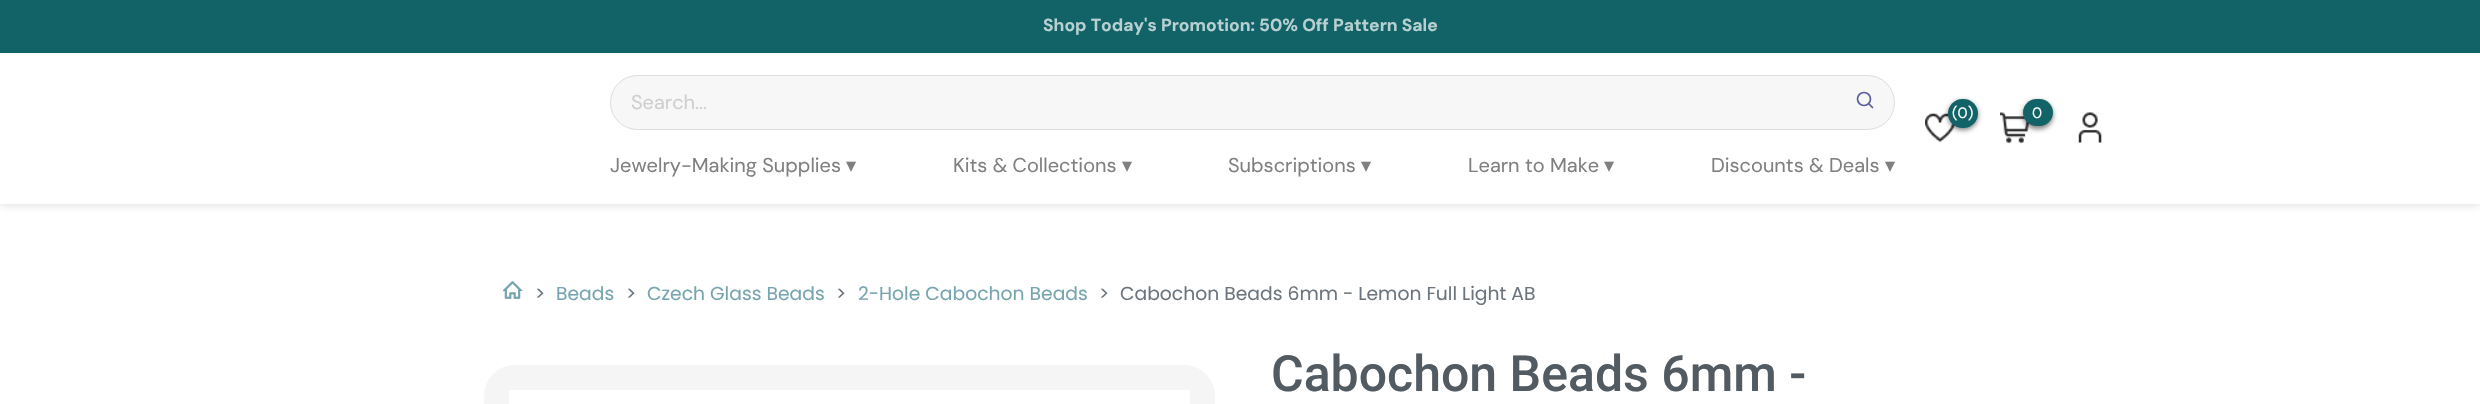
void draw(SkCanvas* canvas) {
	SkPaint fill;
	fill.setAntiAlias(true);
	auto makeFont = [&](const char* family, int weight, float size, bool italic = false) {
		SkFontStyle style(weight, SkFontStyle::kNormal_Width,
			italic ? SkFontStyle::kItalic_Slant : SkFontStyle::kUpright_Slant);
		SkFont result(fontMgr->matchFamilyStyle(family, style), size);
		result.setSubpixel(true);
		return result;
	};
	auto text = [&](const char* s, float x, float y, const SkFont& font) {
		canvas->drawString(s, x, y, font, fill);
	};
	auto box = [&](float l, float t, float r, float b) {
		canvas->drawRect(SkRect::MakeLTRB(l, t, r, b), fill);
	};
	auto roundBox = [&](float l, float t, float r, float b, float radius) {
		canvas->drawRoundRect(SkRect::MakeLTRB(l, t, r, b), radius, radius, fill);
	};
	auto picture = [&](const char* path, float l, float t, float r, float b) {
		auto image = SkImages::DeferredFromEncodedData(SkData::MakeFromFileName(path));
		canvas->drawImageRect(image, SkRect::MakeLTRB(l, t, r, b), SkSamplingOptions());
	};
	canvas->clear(0xFFFFFFFF);
	canvas->save();
	canvas->clipPath(SkPathBuilder(SkPathFillType::kEvenOdd).moveTo(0, 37).lineTo(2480, 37).lineTo(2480, 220).lineTo(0, 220).close().moveTo(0, 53).lineTo(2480, 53).lineTo(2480, 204).lineTo(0, 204).close().detach(), true);
	fill.setColor(0x332D2D2D);
	fill.setMaskFilter(SkMaskFilter::MakeBlur(kNormal_SkBlurStyle, 5));
	canvas->drawRect(SkRect::MakeLTRB(0, 53, 2480, 204), fill);
	fill.setMaskFilter(nullptr);
	canvas->restore();
	fill.setColor(0xFF126367);
	box(0, 0, 2480, 53);
	fill.setColor(0xFFF7F7F7);
	canvas->drawRoundRect(SkRect::MakeLTRB(610.5f, 75.5f, 1894.5f, 129.5f), 27, 27, fill);
	fill.setStyle(SkPaint::kStroke_Style);
	fill.setStrokeWidth(1);
	fill.setColor(0xFFDDDDDD);
	canvas->drawRoundRect(SkRect::MakeLTRB(610.5f, 75.5f, 1894.5f, 129.5f), 27, 27, fill);
	fill.setStrokeWidth(1.7f);
	fill.setColor(0xFF5A5E9A);
	canvas->drawCircle(1864, 99, 6.5f, fill);
	fill.setStrokeCap(SkPaint::kRound_Cap);
	fill.setStrokeJoin(SkPaint::kRound_Join);
	canvas->drawPath(SkPathBuilder().moveTo(1872.5f, 107.5f).lineTo(1869, 104).detach(), fill);
	picture("image0.png", 1925, 112, 1955, 143);
	fill.setStyle(SkPaint::kFill_Style);
	fill.setColor(0x80000000);
	fill.setMaskFilter(SkMaskFilter::MakeBlur(kNormal_SkBlurStyle, 2.5f));
	canvas->drawRoundRect(SkRect::MakeLTRB(1948, 101, 1978, 130), 14.5f, 14.5f, fill);
	fill.setMaskFilter(nullptr);
	fill.setColor(0xFF126367);
	roundBox(1948, 99, 1978, 128, 14.5f);
	picture("image1.png", 2000, 112, 2030, 144);
	fill.setColor(0x80000000);
	fill.setMaskFilter(SkMaskFilter::MakeBlur(kNormal_SkBlurStyle, 2.5f));
	canvas->drawRoundRect(SkRect::MakeLTRB(2023, 101, 2053, 129), 14, 14, fill);
	fill.setMaskFilter(nullptr);
	fill.setColor(0xFF126367);
	roundBox(2023, 99, 2053, 126, 13.5f);
	picture("image2.png", 2078, 112, 2102, 143);
	picture("image3.png", 503, 281, 523, 299);
	fill.setColor(0xFFF5F5F5);
	roundBox(484, 365, 1215, 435, 31);
	fill.setColor(0xFFFFFFFF);
	box(509, 390, 1190, 404);
	auto font1 = makeFont("DM Sans", 700, 17.5f);
	fill.setColor(0xFFB8D0D1);
	text("Shop Today's Promotion: 50% Off Pattern Sale", 1043, 31, font1);
	auto font2 = makeFont("DM Sans", 400, 20);
	fill.setColor(0xFFCFCFCF);
	text("Search...", 631, 109, font2);
	fill.setColor(0xFF808080);
	text("Jewelry-Making Supplies", 610, 172, font2);
	auto font3 = makeFont("DejaVu Sans", 400, 20);
	text("▾", 846, 172, font3);
	text("Kits & Collections", 953, 172, font2);
	text("▾", 1122, 172, font3);
	text("Subscriptions", 1228, 172, font2);
	text("▾", 1361, 172, font3);
	text("Learn to Make", 1468, 172, font2);
	text("▾", 1604, 172, font3);
	text("Discounts & Deals", 1711, 172, font2);
	text("▾", 1885, 172, font3);
	auto font4 = makeFont("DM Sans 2", 400, 15);
	fill.setColor(0xFFFFFFFF);
	text("(0)", 1952, 118, font4);
	text("0", 2032, 118, font4);
	auto font5 = makeFont("Poppins", 400, 18.75f);
	fill.setColor(0xFF6C757D);
	text(">", 535, 300, font5);
	fill.setColor(0xFF76A5AF);
	text("Beads", 556, 300, font5);
	fill.setColor(0xFF6C757D);
	text(">", 626, 300, font5);
	fill.setColor(0xFF76A5AF);
	text("Czech Glass Beads", 647, 300, font5);
	fill.setColor(0xFF6C757D);
	text(">", 836, 300, font5);
	fill.setColor(0xFF76A5AF);
	text("2-Hole Cabochon Beads", 858, 300, font5);
	fill.setColor(0xFF6C757D);
	text(">", 1099, 300, font5);
	text("Cabochon Beads 6mm - Lemon Full Light AB", 1120, 300, font5);
	auto font6 = makeFont("Roboto", 500, 50);
	fill.setColor(0xFF525A62);
	text("Cabochon Beads 6mm -", 1271, 391, font6);
}
